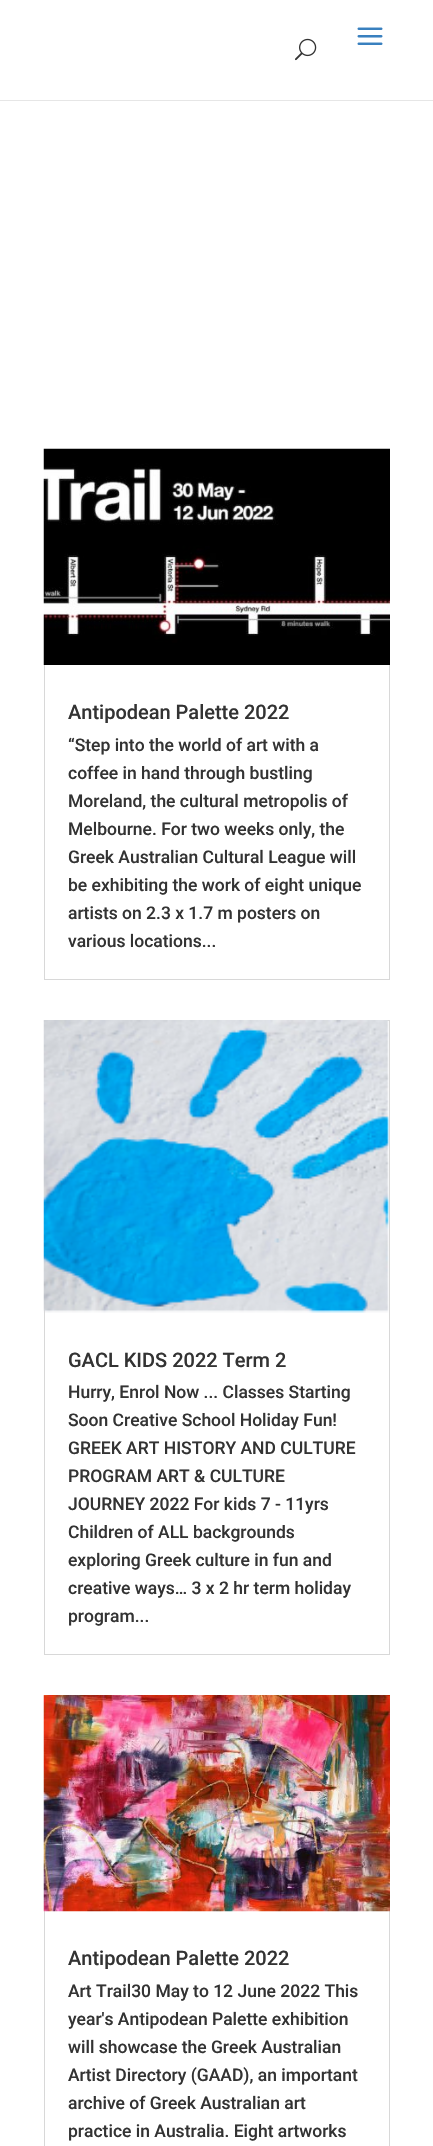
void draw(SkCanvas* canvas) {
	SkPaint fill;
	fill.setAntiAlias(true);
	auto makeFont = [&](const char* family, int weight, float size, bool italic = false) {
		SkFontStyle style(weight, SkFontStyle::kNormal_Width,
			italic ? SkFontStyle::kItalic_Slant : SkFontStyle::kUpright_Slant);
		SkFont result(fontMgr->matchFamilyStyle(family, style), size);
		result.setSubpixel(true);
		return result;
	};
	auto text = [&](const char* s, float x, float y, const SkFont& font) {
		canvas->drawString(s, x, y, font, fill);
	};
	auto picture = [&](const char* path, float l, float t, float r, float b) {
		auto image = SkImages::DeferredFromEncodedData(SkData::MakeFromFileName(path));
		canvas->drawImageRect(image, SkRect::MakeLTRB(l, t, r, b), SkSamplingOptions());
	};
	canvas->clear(0xFFFFFFFF);
	fill.setColor(0xFFE6E6E6);
	canvas->drawPath(SkPathBuilder().moveTo(0, 100).lineTo(0, 101).lineTo(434, 101).lineTo(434, 1).lineTo(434, 100).close().detach(), fill);
	picture("image0.png", 357, 27, 383, 45);
	picture("image1.png", 295, 38, 317, 61);
	fill.setStyle(SkPaint::kStroke_Style);
	fill.setStrokeWidth(1);
	fill.setColor(0xFFD8D8D8);
	canvas->drawRect(SkRect::MakeLTRB(44.5f, 449.5f, 389.5f, 979.5f), fill);
	picture("image2.png", 43, 448, 390, 665);
	canvas->drawRect(SkRect::MakeLTRB(44.5f, 1020.5f, 389.5f, 1654.5f), fill);
	picture("image3.png", 43, 1020, 389, 1313);
	canvas->drawRect(SkRect::MakeLTRB(44.5f, 1695.5f, 389.5f, 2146.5f), fill);
	picture("image4.png", 43, 1695, 390, 1912);
	auto font1 = makeFont("Roboto", 500, 20);
	fill.setStyle(SkPaint::kFill_Style);
	fill.setColor(0xFF333333);
	text("Antipodean Palette 2022", 68, 719, font1);
	auto font2 = makeFont("Roboto", 500, 17.5f);
	text("“Step into the world of art with a", 68, 751, font2);
	text("coffee in hand through bustling", 68, 779, font2);
	text("Moreland, the cultural metropolis of", 68, 807, font2);
	text("Melbourne. For two weeks only, the", 68, 835, font2);
	text("Greek Australian Cultural League will", 68, 863, font2);
	text("be exhibiting the work of eight unique", 68, 891, font2);
	text("artists on 2.3 x 1.7 m posters on", 68, 919, font2);
	text("various locations...", 68, 947, font2);
	text("GACL KIDS 2022 Term 2", 68, 1367, font1);
	text("Hurry, Enrol Now ... Classes Starting", 68, 1398, font2);
	text("Soon Creative School Holiday Fun!", 68, 1426, font2);
	text("GREEK ART HISTORY AND CULTURE", 68, 1454, font2);
	text("PROGRAM ART & CULTURE", 68, 1482, font2);
	text("JOURNEY 2022 For kids 7 - 11yrs", 68, 1510, font2);
	text("Children of ALL backgrounds", 68, 1538, font2);
	text("exploring Greek culture in fun and", 68, 1566, font2);
	text("creative ways… 3 x 2 hr term holiday", 68, 1594, font2);
	text("program...", 68, 1622, font2);
	text("Antipodean Palette 2022", 68, 1965, font1);
	text("Art Trail30 May to 12 June 2022 This", 68, 1997, font2);
	text("year's Antipodean Palette exhibition", 68, 2025, font2);
	text("will showcase the Greek Australian", 68, 2053, font2);
	text("Artist Directory (GAAD), an important", 68, 2081, font2);
	text("archive of Greek Australian art", 68, 2109, font2);
	text("practice in Australia. Eight artworks", 68, 2137, font2);
}
